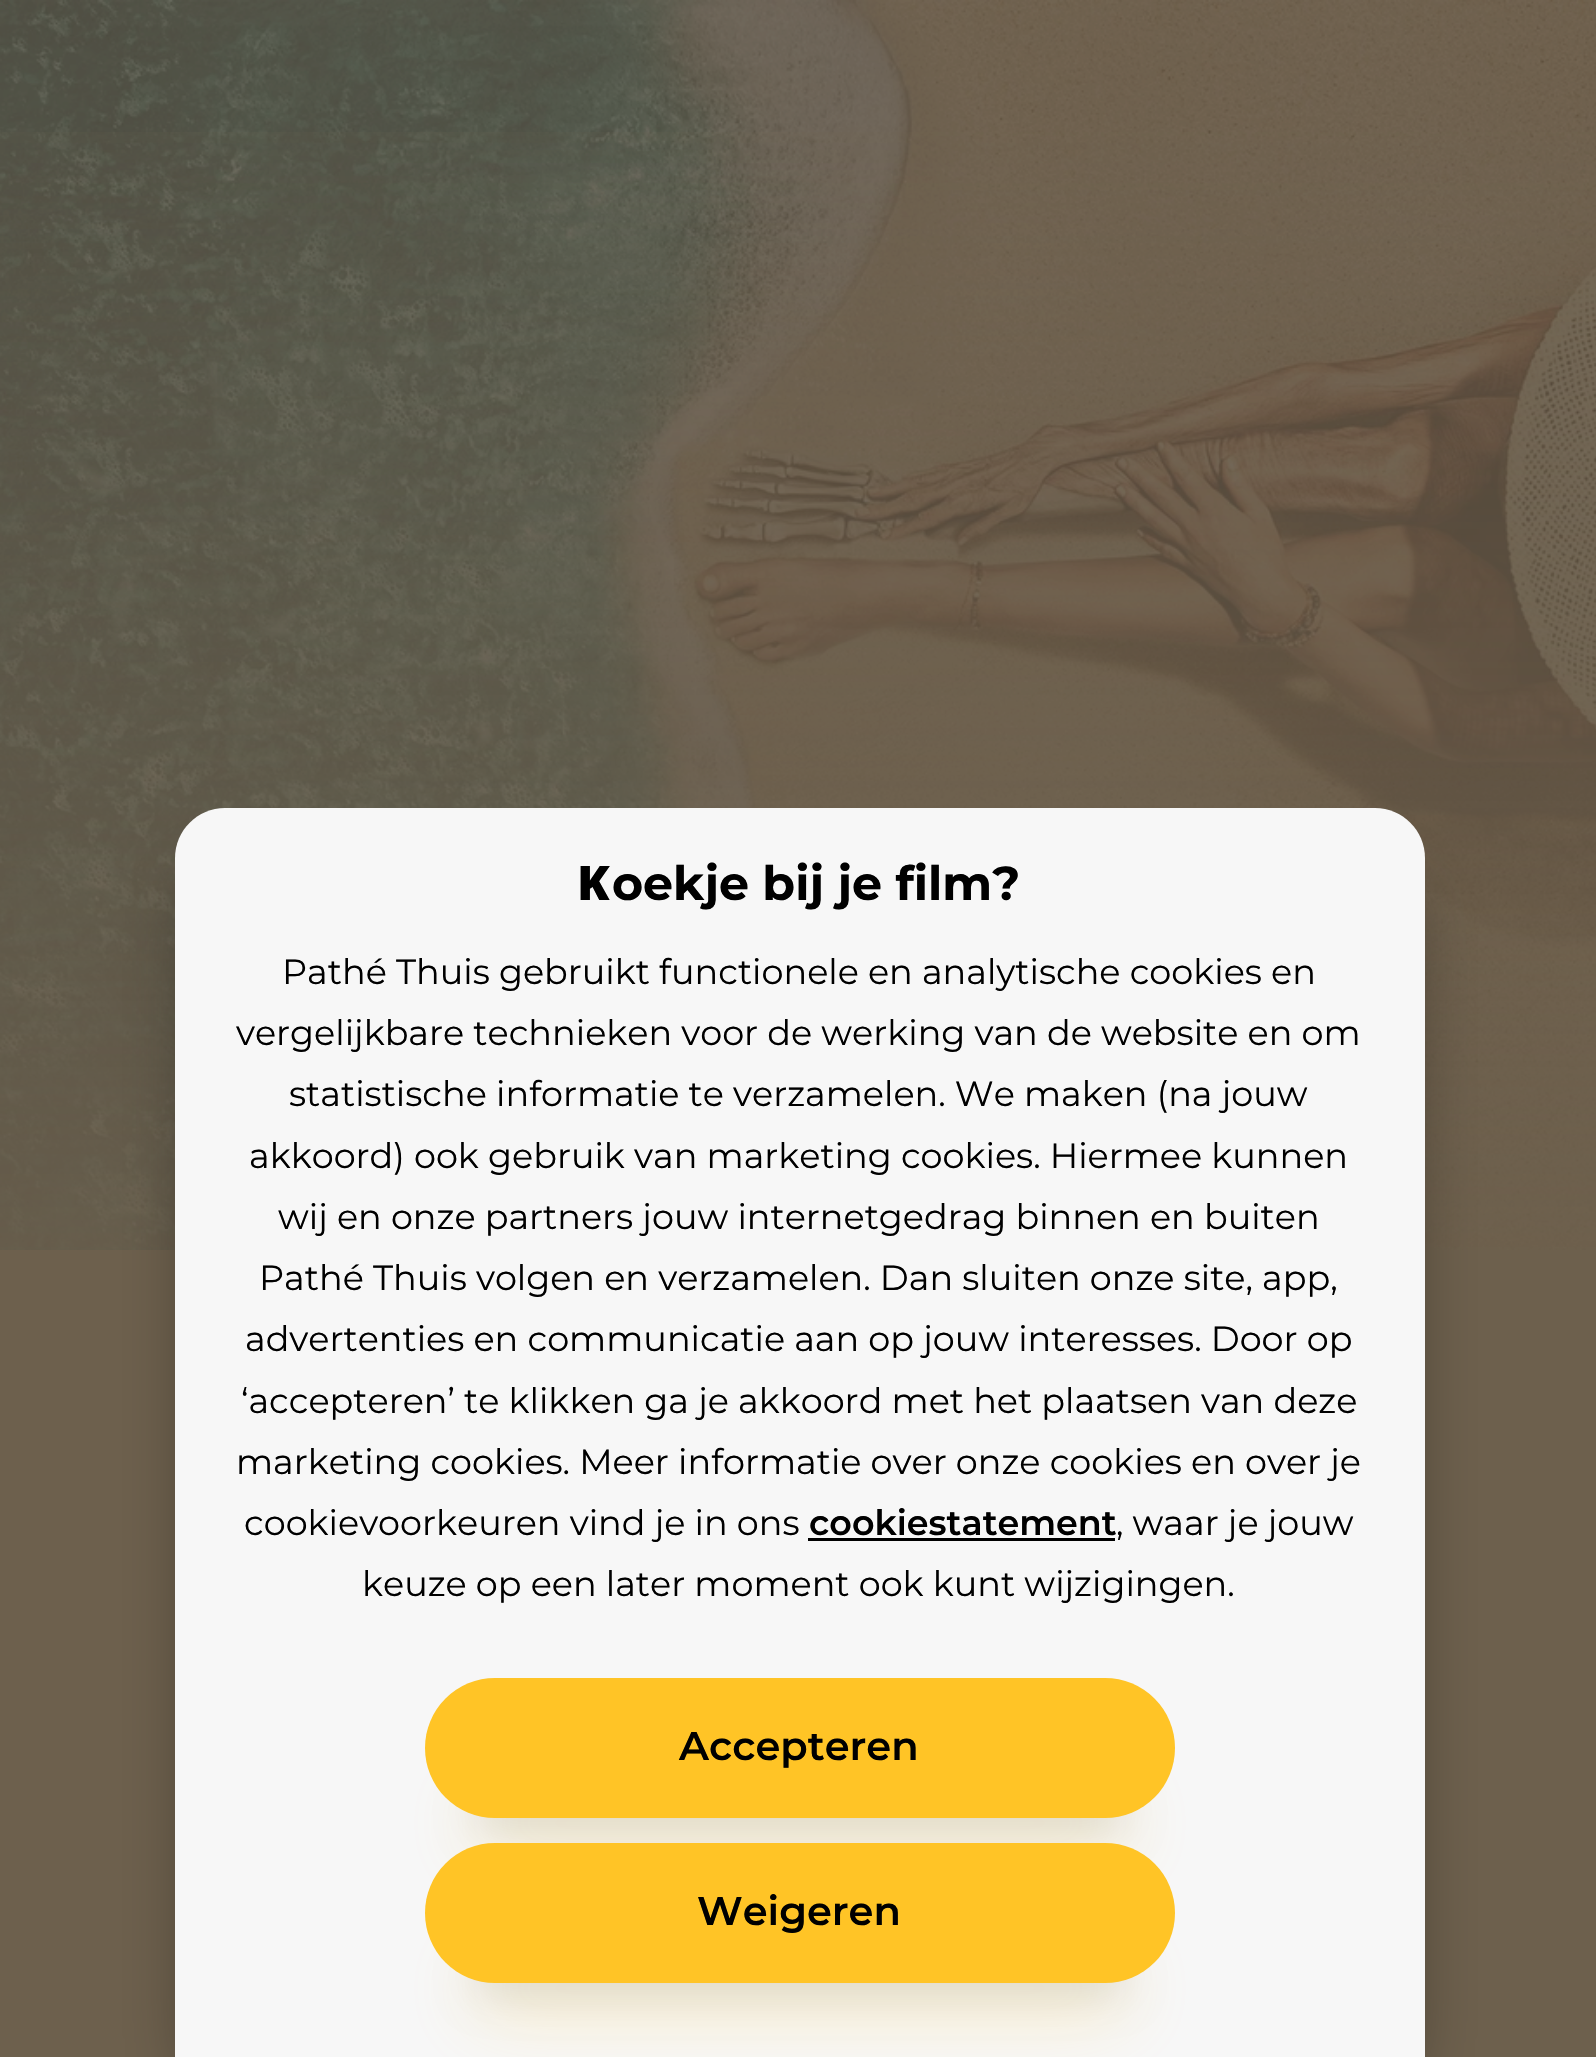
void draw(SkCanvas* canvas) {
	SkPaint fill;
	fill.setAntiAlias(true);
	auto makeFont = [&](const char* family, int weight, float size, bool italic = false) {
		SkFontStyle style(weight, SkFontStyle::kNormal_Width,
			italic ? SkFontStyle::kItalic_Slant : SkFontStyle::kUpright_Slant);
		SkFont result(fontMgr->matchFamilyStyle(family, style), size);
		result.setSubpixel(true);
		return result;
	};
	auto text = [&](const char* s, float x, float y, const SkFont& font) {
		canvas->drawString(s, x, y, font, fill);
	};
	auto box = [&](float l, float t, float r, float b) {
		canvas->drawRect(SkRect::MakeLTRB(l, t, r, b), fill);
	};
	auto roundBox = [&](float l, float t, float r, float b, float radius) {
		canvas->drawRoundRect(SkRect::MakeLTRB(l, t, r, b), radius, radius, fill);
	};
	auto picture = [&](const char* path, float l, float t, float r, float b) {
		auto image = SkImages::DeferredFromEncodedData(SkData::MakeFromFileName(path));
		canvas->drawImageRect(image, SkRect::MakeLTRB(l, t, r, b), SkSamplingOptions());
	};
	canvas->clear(0xFF6D604D);
	picture("image0.png", 0, 0, 1596, 1250);
	{
		const SkColor colors[] = {0x006D604D, 0xBF6D604D};
		const float stops[] = {0, 1};
		const SkPoint ends[] = {{799, 0}, {799, 1270}};
		fill.setShader(SkGradientShader::MakeLinear(ends, colors, stops, 2, SkTileMode::kClamp));
		fill.setAlpha(255);
	}
	box(0, 132, 1596, 1250);
	fill.setShader(nullptr);
	fill.setColor(0x80000000);
	fill.setMaskFilter(SkMaskFilter::MakeBlur(kNormal_SkBlurStyle, 37.5f));
	canvas->drawRoundRect(SkRect::MakeLTRB(200, 883, 1400, 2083), 25, 25, fill);
	fill.setMaskFilter(nullptr);
	fill.setColor(0xFFF7F7F7);
	canvas->drawPath(SkPathBuilder().moveTo(225, 808).lineTo(1375, 808).cubicTo(1402.5f, 808, 1425, 830.5f, 1425, 858).lineTo(1425, 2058).lineTo(175, 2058).lineTo(175, 858).cubicTo(175, 830.5f, 197.5f, 808, 225, 808).close().detach(), fill);
	fill.setColor(0xFF000000);
	box(808, 1538, 1115, 1541);
	fill.setColor(0x4DFFC426);
	fill.setMaskFilter(SkMaskFilter::MakeBlur(kNormal_SkBlurStyle, 37.5f));
	canvas->drawRoundRect(SkRect::MakeLTRB(475, 1803, 1125, 1843), 20, 20, fill);
	fill.setMaskFilter(nullptr);
	fill.setColor(0x1A000000);
	fill.setMaskFilter(SkMaskFilter::MakeBlur(kNormal_SkBlurStyle, 19));
	canvas->drawRoundRect(SkRect::MakeLTRB(475, 1790, 1125, 1830), 20, 20, fill);
	fill.setMaskFilter(nullptr);
	fill.setColor(0xFFFFC426);
	roundBox(425, 1678, 1175, 1818, 70);
	fill.setColor(0x4DFFC426);
	fill.setMaskFilter(SkMaskFilter::MakeBlur(kNormal_SkBlurStyle, 37.5f));
	canvas->drawRoundRect(SkRect::MakeLTRB(475, 1968, 1125, 2008), 20, 20, fill);
	fill.setMaskFilter(nullptr);
	fill.setColor(0x1A000000);
	fill.setMaskFilter(SkMaskFilter::MakeBlur(kNormal_SkBlurStyle, 19));
	canvas->drawRoundRect(SkRect::MakeLTRB(475, 1955, 1125, 1995), 20, 20, fill);
	fill.setMaskFilter(nullptr);
	fill.setColor(0xFFFFC426);
	roundBox(425, 1843, 1175, 1983, 70);
	auto font1 = makeFont("Noto Sans", 900, 47.5f);
	fill.setColor(0xFF000000);
	text("K", 577, 900, font1);
	auto font2 = makeFont("Montserrat", 700, 47.5f);
	text("oekje bij je film?", 612, 900, font2);
	auto font3 = makeFont("Montserrat", 400, 35);
	text("Pathé Thuis gebruikt functionele en analytische cookies en", 282, 984, font3);
	text("vergelijkbare technieken voor de werking van de website en om", 236, 1045, font3);
	text("statistische informatie te verzamelen. We maken (na jouw", 289, 1106, font3);
	text("akkoord) ook gebruik van marketing cookies. Hiermee kunnen", 249, 1168, font3);
	text("wij en onze partners jouw internetgedrag binnen en buiten", 278, 1229, font3);
	text("Pathé Thuis volgen en verzamelen. Dan sluiten onze site, app,", 259, 1290, font3);
	text("advertenties en communicatie aan op jouw interesses. Door op", 245, 1351, font3);
	text("‘accepteren’ te klikken ga je akkoord met het plaatsen van deze", 241, 1413, font3);
	text("marketing cookies. Meer informatie over onze cookies en over je", 236, 1474, font3);
	text("cookievoorkeuren vind je in ons", 244, 1535, font3);
	auto font4 = makeFont("Montserrat", 600, 35);
	text("cookiestatement", 809, 1535, font4);
	text(", waar je jouw", 1116, 1535, font3);
	text("keuze op een later moment ook kunt wijzigingen.", 362, 1596, font3);
	auto font5 = makeFont("Montserrat", 600, 40);
	text("Accepteren", 679, 1760, font5);
	text("Weigeren", 697, 1925, font5);
}
